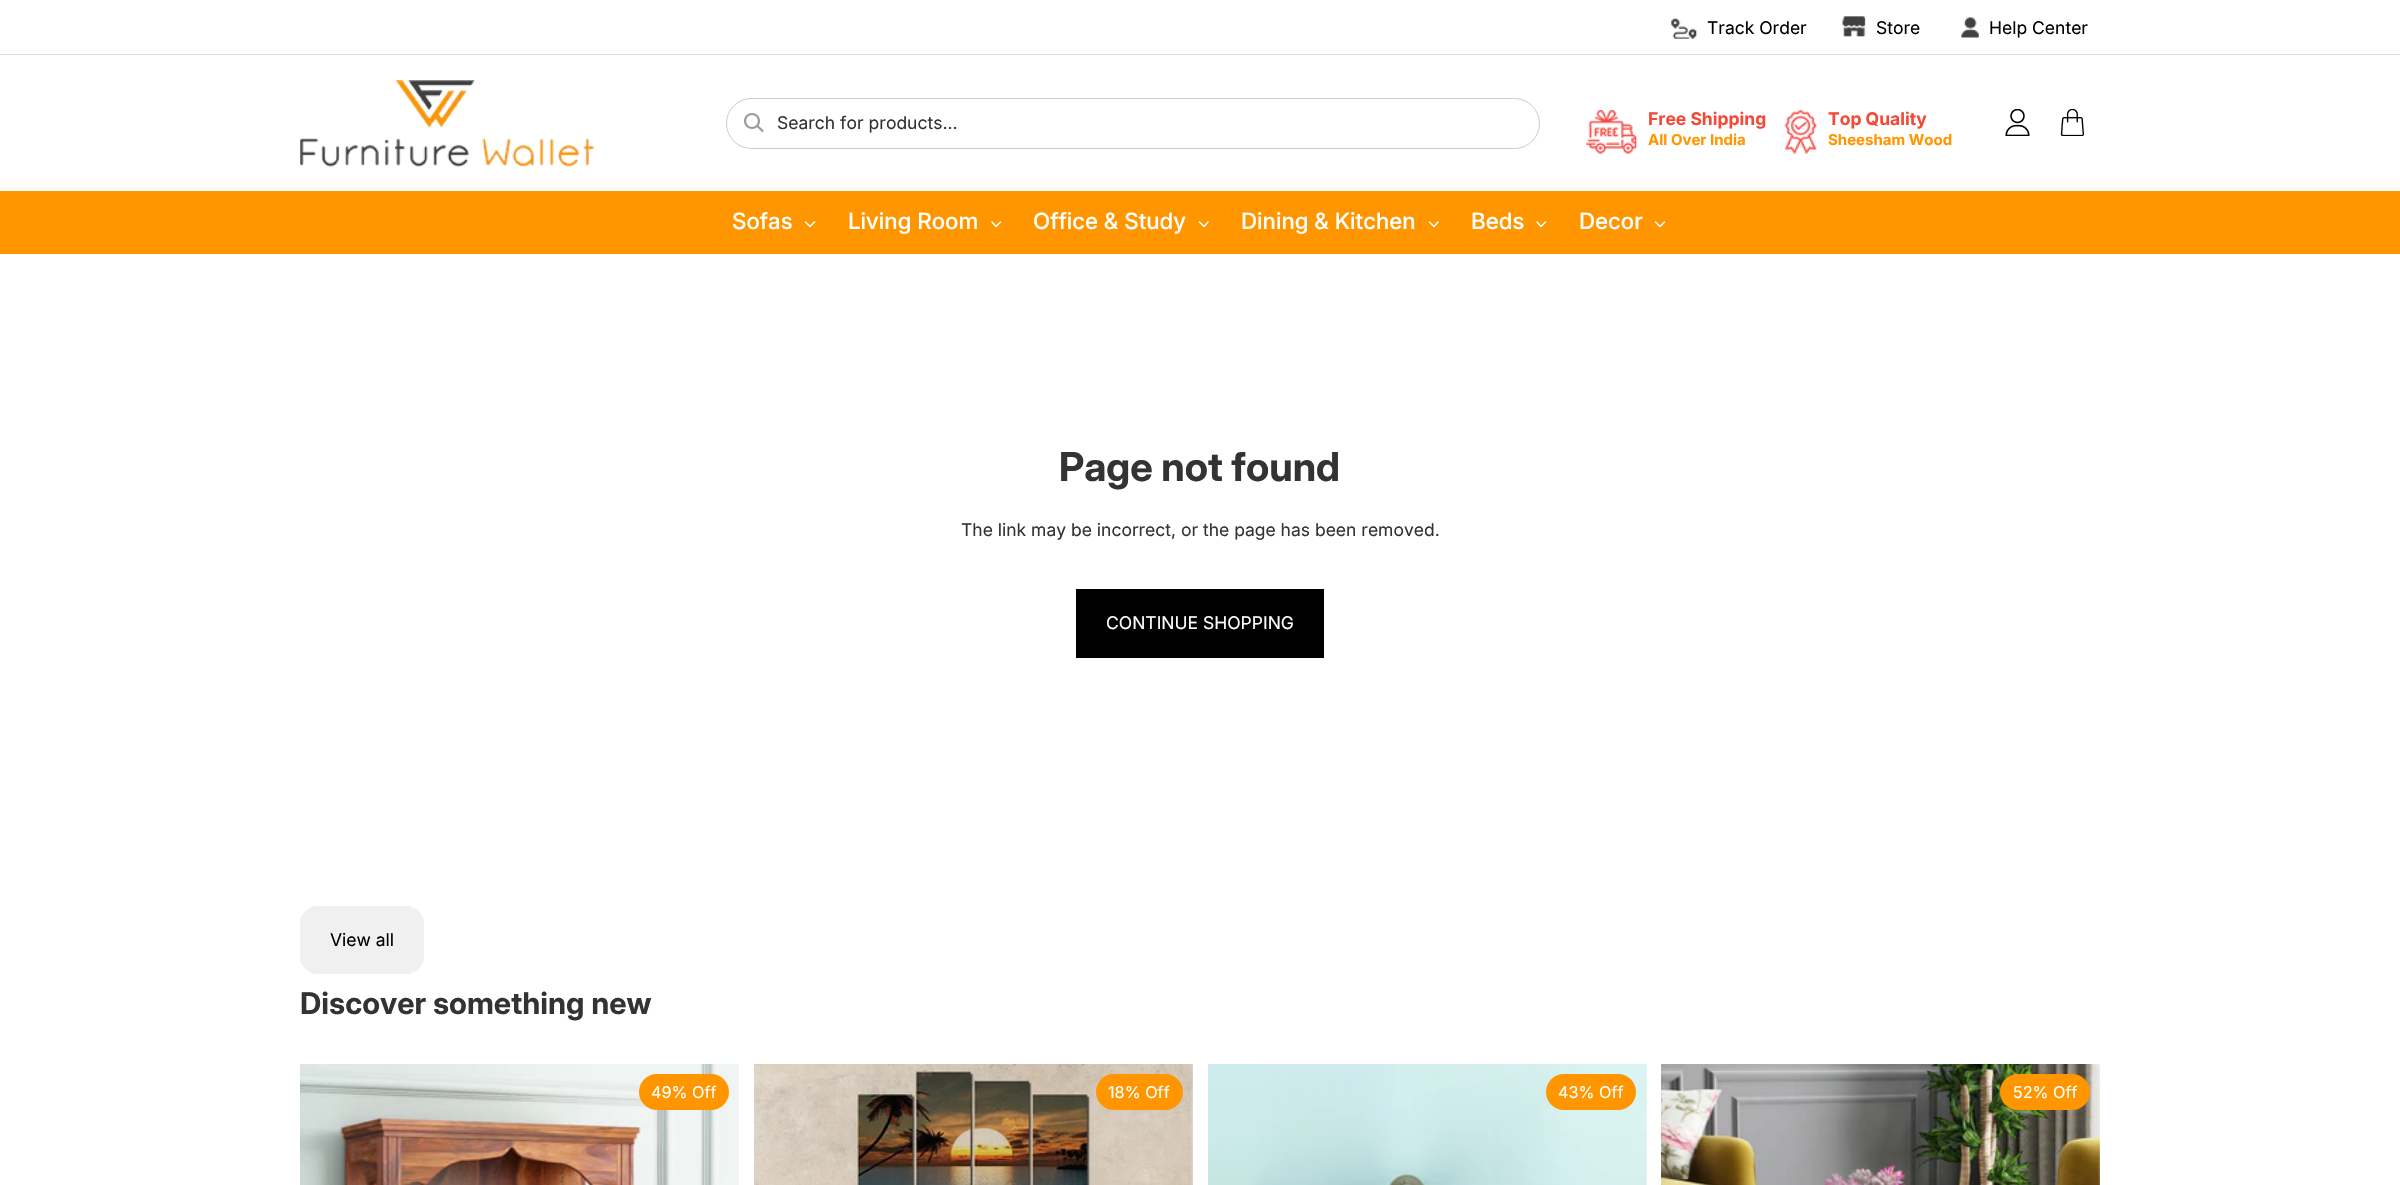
void draw(SkCanvas* canvas) {
	SkPaint fill;
	fill.setAntiAlias(true);
	auto makeFont = [&](const char* family, int weight, float size, bool italic = false) {
		SkFontStyle style(weight, SkFontStyle::kNormal_Width,
			italic ? SkFontStyle::kItalic_Slant : SkFontStyle::kUpright_Slant);
		SkFont result(fontMgr->matchFamilyStyle(family, style), size);
		result.setSubpixel(true);
		return result;
	};
	auto text = [&](const char* s, float x, float y, const SkFont& font) {
		canvas->drawString(s, x, y, font, fill);
	};
	auto box = [&](float l, float t, float r, float b) {
		canvas->drawRect(SkRect::MakeLTRB(l, t, r, b), fill);
	};
	auto roundBox = [&](float l, float t, float r, float b, float radius) {
		canvas->drawRoundRect(SkRect::MakeLTRB(l, t, r, b), radius, radius, fill);
	};
	auto picture = [&](const char* path, float l, float t, float r, float b) {
		auto image = SkImages::DeferredFromEncodedData(SkData::MakeFromFileName(path));
		canvas->drawImageRect(image, SkRect::MakeLTRB(l, t, r, b), SkSamplingOptions());
	};
	canvas->clear(0xFFFFFFFF);
	fill.setColor(0xFFDDDDDD);
	box(0, 54, 2400, 55);
	picture("image0.png", 1671, 18, 1697, 39);
	picture("image1.png", 1842, 16, 1866, 37);
	picture("image2.png", 1961, 17, 1979, 38);
	picture("image3.png", 300, 80, 594, 167);
	fill.setStyle(SkPaint::kStroke_Style);
	fill.setStrokeWidth(1);
	fill.setColor(0xFFCCCCCC);
	canvas->drawRoundRect(SkRect::MakeLTRB(726.5f, 98.5f, 1539.5f, 148.5f), 25, 25, fill);
	fill.setStrokeWidth(2.2f);
	fill.setColor(0xFF9B9B9B);
	canvas->drawCircle(752, 121, 7, fill);
	fill.setStrokeCap(SkPaint::kRound_Cap);
	fill.setStrokeJoin(SkPaint::kRound_Join);
	canvas->drawPath(SkPathBuilder().moveTo(757.5f, 126).lineTo(762.5f, 131).detach(), fill);
	picture("image4.png", 1586, 110, 1637, 154);
	picture("image5.png", 1784, 110, 1817, 154);
	picture("image6.png", 2005, 109, 2030, 136);
	picture("image7.png", 2060, 109, 2084, 136);
	fill.setStyle(SkPaint::kFill_Style);
	fill.setColor(0xFFFF9600);
	box(0, 191, 2400, 254);
	fill.setStyle(SkPaint::kStroke_Style);
	fill.setStrokeWidth(1.6f);
	fill.setColor(0xFFFFFFFF);
	canvas->drawPath(SkPathBuilder().moveTo(814.5f, 222).lineTo(810, 226.5f).lineTo(805.5f, 222).detach(), fill);
	canvas->drawPath(SkPathBuilder().moveTo(1000.5f, 222).lineTo(996, 226.5f).lineTo(992, 222).detach(), fill);
	canvas->drawPath(SkPathBuilder().moveTo(1208, 222).lineTo(1204, 226.5f).lineTo(1199.5f, 222).detach(), fill);
	canvas->drawPath(SkPathBuilder().moveTo(1438, 222).lineTo(1434, 226.5f).lineTo(1429.5f, 222).detach(), fill);
	canvas->drawPath(SkPathBuilder().moveTo(1545.5f, 222).lineTo(1541, 226.5f).lineTo(1537, 222).detach(), fill);
	canvas->drawPath(SkPathBuilder().moveTo(1664.5f, 222).lineTo(1660, 226.5f).lineTo(1655.5f, 222).detach(), fill);
	fill.setStyle(SkPaint::kFill_Style);
	fill.setColor(0xFF000000);
	box(1076, 589, 1324, 658);
	fill.setColor(0xFFF0F0F0);
	roundBox(300, 906, 424, 974, 18);
	picture("image8.png", 300, 1064, 739, 1185);
	fill.setColor(0xFFFF9600);
	roundBox(639, 1074, 729, 1110, 18);
	picture("image9.png", 754, 1064, 1193, 1185);
	roundBox(1096, 1074, 1183, 1110, 18);
	picture("image10.png", 1208, 1064, 1647, 1185);
	roundBox(1546, 1074, 1636, 1110, 18);
	picture("image11.png", 1661, 1064, 2100, 1185);
	roundBox(2000, 1074, 2090, 1110, 18);
	auto font1 = makeFont("Inter", 400, 17.5f);
	fill.setColor(0xFF000000);
	text("Track Order", 1707, 34, font1);
	text("Store", 1876, 34, font1);
	text("Help Center", 1989, 34, font1);
	fill.setColor(0xFF333333);
	text("Search for products...", 777, 129, font1);
	auto font2 = makeFont("Inter", 700, 17.5f);
	fill.setColor(0xFFF54937);
	text("Free Shipping", 1648, 125, font2);
	auto font3 = makeFont("Inter", 700, 15);
	fill.setColor(0xFFFF9600);
	text("All Over India", 1648, 145, font3);
	fill.setColor(0xFFF54937);
	text("Top Quality", 1828, 125, font2);
	fill.setColor(0xFFFF9600);
	text("Sheesham Wood", 1828, 145, font3);
	auto font4 = makeFont("Inter", 500, 22.5f);
	fill.setColor(0xFFFFFFFF);
	text("Sofas", 732, 229, font4);
	text("Living Room", 848, 229, font4);
	text("Office & Study", 1033, 229, font4);
	text("Dining & Kitchen", 1241, 229, font4);
	text("Beds", 1471, 229, font4);
	text("Decor", 1579, 229, font4);
	auto font5 = makeFont("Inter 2", 700, 40);
	fill.setColor(0xFF333333);
	text("Page not found", 1059, 481, font5);
	text("The link may be incorrect, or the page has been removed.", 961, 536, font1);
	fill.setColor(0xFFFFFFFF);
	text("CONTINUE SHOPPING", 1106, 629, font1);
	fill.setColor(0xFF000000);
	text("View all", 330, 946, font1);
	auto font6 = makeFont("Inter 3", 700, 30);
	fill.setColor(0xFF333333);
	text("Discover something new", 300, 1014, font6);
	auto font7 = makeFont("Inter", 400, 16.25f);
	fill.setColor(0xFFFFFFFF);
	text("49% Off", 651, 1098, font7);
	text("18% Off", 1108, 1098, font7);
	text("43% Off", 1558, 1098, font7);
	text("52% Off", 2013, 1098, font7);
}
